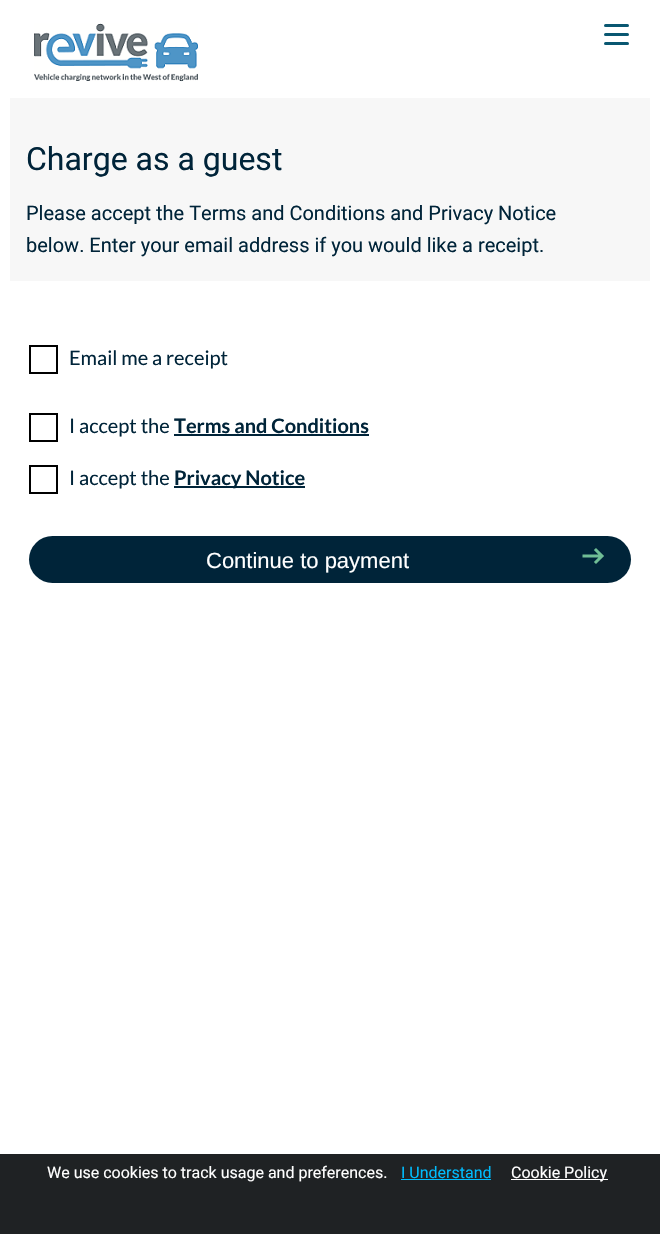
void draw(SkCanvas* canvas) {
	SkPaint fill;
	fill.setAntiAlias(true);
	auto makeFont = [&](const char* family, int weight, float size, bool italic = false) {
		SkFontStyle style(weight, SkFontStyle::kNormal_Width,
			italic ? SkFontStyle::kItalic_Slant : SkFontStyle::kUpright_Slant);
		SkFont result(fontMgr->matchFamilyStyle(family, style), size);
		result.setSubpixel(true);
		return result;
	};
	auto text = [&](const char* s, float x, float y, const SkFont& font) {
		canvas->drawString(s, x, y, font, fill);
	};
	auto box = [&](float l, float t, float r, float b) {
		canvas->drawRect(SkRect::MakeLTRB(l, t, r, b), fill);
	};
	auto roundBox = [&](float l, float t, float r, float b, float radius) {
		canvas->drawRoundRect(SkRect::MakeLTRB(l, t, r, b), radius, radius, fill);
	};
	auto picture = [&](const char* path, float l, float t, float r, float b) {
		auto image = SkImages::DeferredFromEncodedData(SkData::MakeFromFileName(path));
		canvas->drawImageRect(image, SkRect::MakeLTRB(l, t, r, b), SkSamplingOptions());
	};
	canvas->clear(0xFFFFFFFF);
	picture("image0.png", 34, 23, 198, 82);
	fill.setColor(0xFF095771);
	roundBox(604, 24, 629, 27, 1.5f);
	roundBox(604, 33, 629, 36, 1.5f);
	roundBox(604, 42, 629, 45, 1.5f);
	fill.setColor(0xFFF7F7F7);
	box(10, 98, 650, 281);
	fill.setStyle(SkPaint::kStroke_Style);
	fill.setStrokeWidth(2);
	fill.setColor(0xFF000000);
	canvas->drawRect(SkRect::MakeLTRB(30, 346, 57, 373), fill);
	canvas->drawRect(SkRect::MakeLTRB(30, 414, 57, 441), fill);
	fill.setStyle(SkPaint::kFill_Style);
	fill.setColor(0xFF002439);
	box(174, 434, 369, 436);
	fill.setStyle(SkPaint::kStroke_Style);
	fill.setColor(0xFF000000);
	canvas->drawRect(SkRect::MakeLTRB(30, 466, 57, 493), fill);
	fill.setStyle(SkPaint::kFill_Style);
	fill.setColor(0xFF002439);
	box(174, 486, 305, 488);
	roundBox(29, 536, 631, 583, 23.5f);
	picture("image1.png", 582, 548, 604, 564);
	fill.setColor(0xFF1F2224);
	box(0, 1154, 660, 1234);
	fill.setColor(0xFF00BCFD);
	box(401, 1179, 491, 1180);
	fill.setColor(0xFFFFFFFF);
	box(511, 1179, 608, 1180);
	auto font1 = makeFont("Roboto", 400, 32);
	fill.setColor(0xFF002439);
	text("Charge as a guest", 26, 170, font1);
	auto font2 = makeFont("Roboto", 400, 20);
	text("Please accept the Terms and Conditions and Privacy Notice", 26, 220, font2);
	text("below. Enter your email address if you would like a receipt.", 26, 252, font2);
	auto font3 = makeFont("Lato", 400, 20);
	text("Email me a receipt", 69, 365, font3);
	text("I accept the", 69, 433, font3);
	auto font4 = makeFont("Lato", 700, 20);
	text("Terms and Conditions", 174, 433, font4);
	text("I accept the", 69, 485, font3);
	text("Privacy Notice", 174, 485, font4);
	auto font5 = makeFont("Liberation Sans", 400, 22);
	fill.setColor(0xFFFFFFFF);
	text("Continue to payment", 206, 568, font5);
	auto font6 = makeFont("Roboto", 400, 16);
	text("We use cookies to track usage and preferences.", 47, 1178, font6);
	fill.setColor(0xFF00BCFD);
	text("I Understand", 401, 1178, font6);
	fill.setColor(0xFFFFFFFF);
	text("Cookie Policy", 511, 1178, font6);
}
